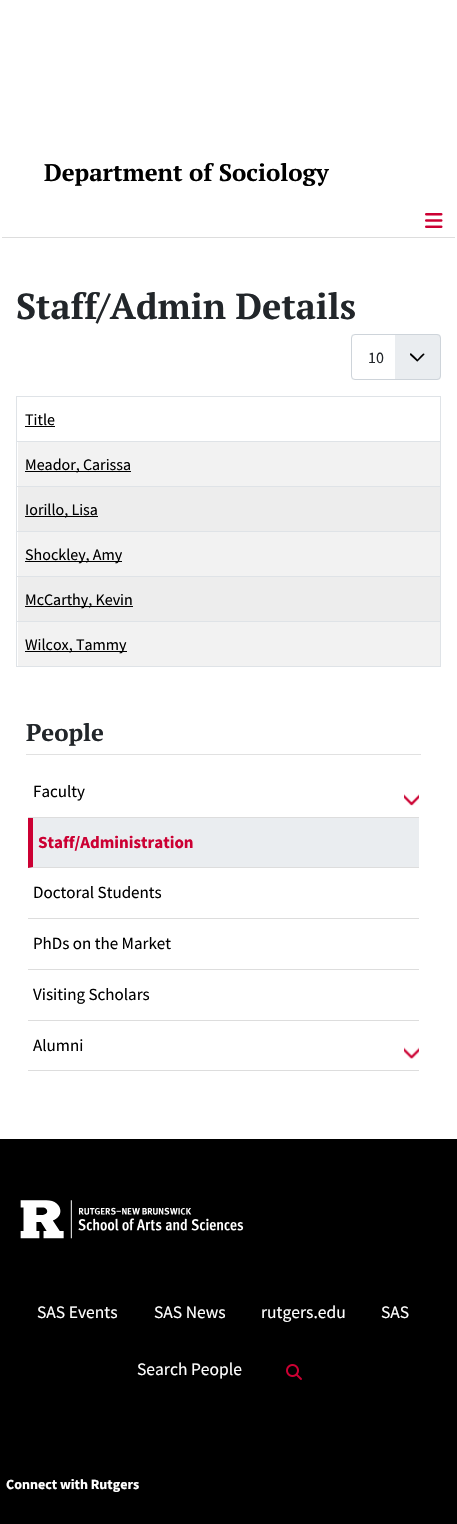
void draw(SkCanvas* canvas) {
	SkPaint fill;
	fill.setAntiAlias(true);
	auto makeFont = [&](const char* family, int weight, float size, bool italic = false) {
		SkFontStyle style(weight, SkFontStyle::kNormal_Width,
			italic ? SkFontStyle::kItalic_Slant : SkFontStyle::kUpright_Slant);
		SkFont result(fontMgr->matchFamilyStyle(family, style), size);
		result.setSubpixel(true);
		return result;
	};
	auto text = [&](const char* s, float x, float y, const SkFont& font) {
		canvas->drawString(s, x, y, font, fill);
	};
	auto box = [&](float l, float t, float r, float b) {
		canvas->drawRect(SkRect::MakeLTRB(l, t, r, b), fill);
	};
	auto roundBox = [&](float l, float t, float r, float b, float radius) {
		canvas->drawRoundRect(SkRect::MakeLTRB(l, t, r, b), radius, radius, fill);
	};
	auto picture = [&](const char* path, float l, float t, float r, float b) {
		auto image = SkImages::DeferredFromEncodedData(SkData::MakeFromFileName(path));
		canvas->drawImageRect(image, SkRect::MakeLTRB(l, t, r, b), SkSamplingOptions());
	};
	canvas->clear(0xFFFFFFFF);
	fill.setColor(0xFFDDDDDD);
	box(2, 237, 455, 238);
	picture("image0.png", 425, 213, 443, 228);
	fill.setColor(0xFFEAEDF0);
	roundBox(351, 334, 441, 380, 4);
	fill.setColor(0xFF000000);
	canvas->drawPath(SkPathBuilder().moveTo(410, 355).lineTo(416, 360.5f).cubicTo(417.5f, 362, 417, 362, 418.5f, 360.5f).lineTo(424.5f, 354.5f).cubicTo(424, 351.5f, 421.5f, 355.5f, 421, 355.5f).lineTo(417.5f, 359.5f).lineTo(413.5f, 355.5f).cubicTo(412.5f, 354.5f, 410, 351.5f, 410, 354.5f).close().detach(), fill);
	fill.setColor(0xFFFFFFFF);
	canvas->drawPath(SkPathBuilder().moveTo(355, 334).lineTo(395, 334).lineTo(395, 380).lineTo(355, 380).cubicTo(353, 380, 351, 378, 351, 376).lineTo(351, 338).cubicTo(351, 336, 353, 334, 355, 334).close().detach(), fill);
	fill.setStyle(SkPaint::kStroke_Style);
	fill.setStrokeWidth(1);
	fill.setColor(0xFFCED4DA);
	canvas->drawRoundRect(SkRect::MakeLTRB(351.5f, 334.5f, 440.5f, 379.5f), 3.5f, 3.5f, fill);
	fill.setStyle(SkPaint::kFill_Style);
	fill.setColor(0xFFDFE3E7);
	box(16, 396, 441, 397);
	fill.setColor(0xFF000000);
	box(25, 426, 55, 427);
	fill.setColor(0xFFDFE3E7);
	box(16, 441, 441, 442);
	fill.setColor(0xFFF2F2F2);
	box(18, 442, 440, 486);
	fill.setColor(0xFF000000);
	box(25, 471, 131, 472);
	fill.setColor(0xFFDFE3E7);
	box(16, 486, 441, 487);
	fill.setColor(0xFFEDEDED);
	box(18, 487, 440, 531);
	fill.setColor(0xFF000000);
	box(25, 516, 98, 517);
	fill.setColor(0xFFDFE3E7);
	box(16, 531, 441, 532);
	fill.setColor(0xFFF2F2F2);
	box(18, 532, 440, 576);
	fill.setColor(0xFF000000);
	box(25, 561, 122, 562);
	fill.setColor(0xFFDFE3E7);
	box(16, 576, 441, 577);
	fill.setColor(0xFFEDEDED);
	box(18, 577, 440, 621);
	fill.setColor(0xFF000000);
	box(25, 606, 133, 607);
	fill.setColor(0xFFDFE3E7);
	box(16, 621, 441, 622);
	box(16, 666, 441, 667);
	fill.setColor(0xFFF2F2F2);
	box(18, 622, 440, 666);
	fill.setColor(0xFFDFE3E7);
	box(440, 396, 441, 667);
	box(16, 396, 17, 667);
	fill.setColor(0xFF000000);
	box(25, 651, 127, 652);
	fill.setColor(0xFFE1E1E1);
	box(26, 754, 421, 755);
	fill.setColor(0xFFDDDDDD);
	box(28, 817, 419, 818);
	picture("image1.png", 404, 794, 419, 806);
	fill.setColor(0xFFEAEDF0);
	box(28, 818, 419, 868);
	fill.setColor(0xFFDDDDDD);
	canvas->drawPath(SkPathBuilder().moveTo(419, 868).lineTo(28, 868).lineTo(33, 867).lineTo(419, 867).close().detach(), fill);
	fill.setColor(0xFFCC0033);
	canvas->drawPath(SkPathBuilder().moveTo(28, 868).lineTo(28, 818).lineTo(33, 818).lineTo(33, 867).close().detach(), fill);
	fill.setColor(0xFFDDDDDD);
	box(28, 918, 419, 919);
	box(28, 969, 419, 970);
	box(28, 1020, 419, 1021);
	box(28, 1070, 419, 1071);
	picture("image2.png", 404, 1047, 419, 1059);
	fill.setColor(0xFF000000);
	box(0, 1139, 457, 1524);
	picture("image3.png", 20, 1200, 244, 1239);
	picture("image4.png", 286, 1364, 302, 1380);
	auto font1 = makeFont("PT Serif", 700, 24);
	text("Department of Sociology", 44, 181, font1);
	auto font2 = makeFont("PT Serif", 700, 36);
	fill.setColor(0xFF22262A);
	text("Staff/Admin Details", 16, 319, font2);
	auto font3 = makeFont("Source Sans Pro", 400, 16);
	text("10", 368, 363, font3);
	fill.setColor(0xFF000000);
	text("Title", 25, 425, font3);
	text("Meador, Carissa", 25, 470, font3);
	text("Iorillo, Lisa", 25, 515, font3);
	text("Shockley, Amy", 25, 560, font3);
	text("McCarthy, Kevin", 25, 605, font3);
	text("Wilcox, Tammy", 25, 650, font3);
	fill.setColor(0xFF22262A);
	text("People", 26, 741, font1);
	auto font4 = makeFont("Source Sans Pro", 400, 17);
	fill.setColor(0xFF000000);
	text("Faculty", 33, 797, font4);
	auto font5 = makeFont("Source Sans Pro", 700, 17);
	fill.setColor(0xFFCC0033);
	text("Staff/Administration", 38, 848, font5);
	fill.setColor(0xFF000000);
	text("Doctoral Students", 33, 898, font4);
	text("PhDs on the Market", 33, 949, font4);
	text("Visiting Scholars", 33, 1000, font4);
	text("Alumni", 33, 1051, font4);
	auto font6 = makeFont("Source Sans Pro", 400, 17.5f);
	fill.setColor(0xFFFFFFFF);
	text("SAS Events", 37, 1318, font6);
	text("SAS News", 154, 1318, font6);
	text("rutgers.edu", 261, 1318, font6);
	text("SAS", 381, 1318, font6);
	text("Search People", 137, 1375, font6);
	auto font7 = makeFont("Source Sans Pro", 700, 14);
	text("Connect with Rutgers", 6, 1489, font7);
}
